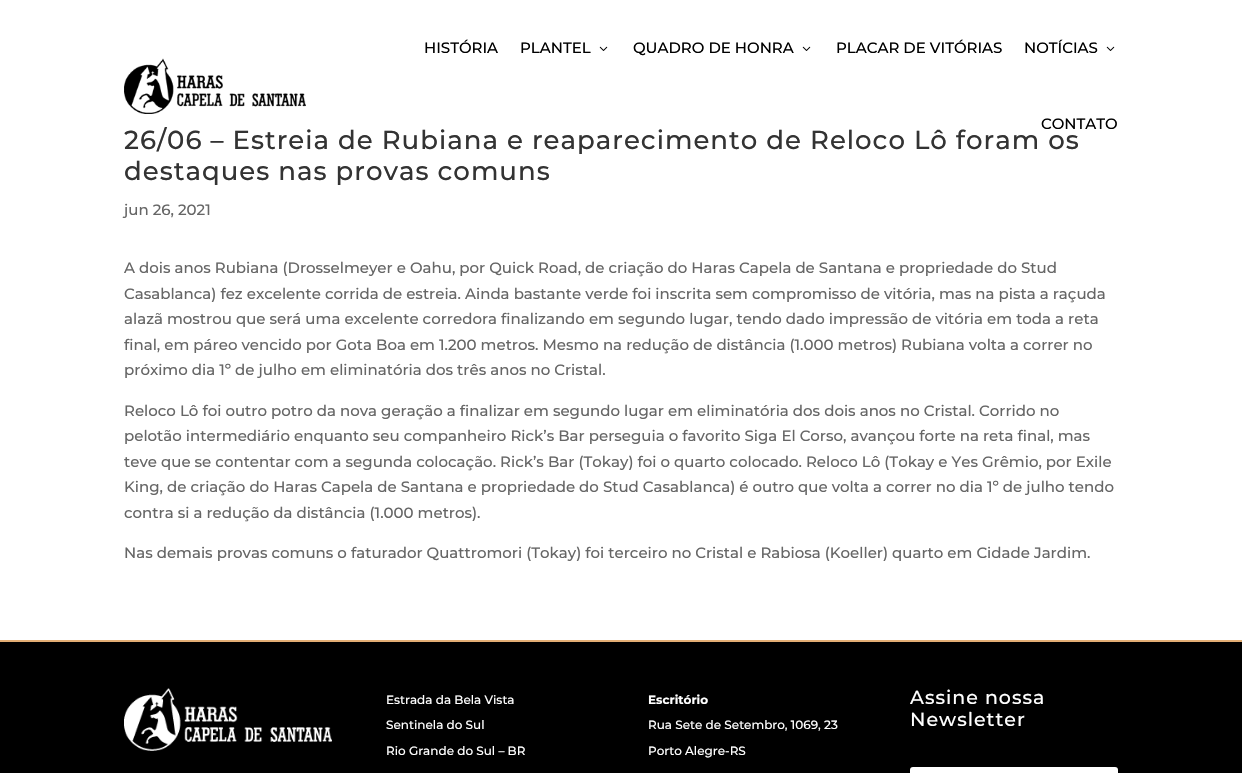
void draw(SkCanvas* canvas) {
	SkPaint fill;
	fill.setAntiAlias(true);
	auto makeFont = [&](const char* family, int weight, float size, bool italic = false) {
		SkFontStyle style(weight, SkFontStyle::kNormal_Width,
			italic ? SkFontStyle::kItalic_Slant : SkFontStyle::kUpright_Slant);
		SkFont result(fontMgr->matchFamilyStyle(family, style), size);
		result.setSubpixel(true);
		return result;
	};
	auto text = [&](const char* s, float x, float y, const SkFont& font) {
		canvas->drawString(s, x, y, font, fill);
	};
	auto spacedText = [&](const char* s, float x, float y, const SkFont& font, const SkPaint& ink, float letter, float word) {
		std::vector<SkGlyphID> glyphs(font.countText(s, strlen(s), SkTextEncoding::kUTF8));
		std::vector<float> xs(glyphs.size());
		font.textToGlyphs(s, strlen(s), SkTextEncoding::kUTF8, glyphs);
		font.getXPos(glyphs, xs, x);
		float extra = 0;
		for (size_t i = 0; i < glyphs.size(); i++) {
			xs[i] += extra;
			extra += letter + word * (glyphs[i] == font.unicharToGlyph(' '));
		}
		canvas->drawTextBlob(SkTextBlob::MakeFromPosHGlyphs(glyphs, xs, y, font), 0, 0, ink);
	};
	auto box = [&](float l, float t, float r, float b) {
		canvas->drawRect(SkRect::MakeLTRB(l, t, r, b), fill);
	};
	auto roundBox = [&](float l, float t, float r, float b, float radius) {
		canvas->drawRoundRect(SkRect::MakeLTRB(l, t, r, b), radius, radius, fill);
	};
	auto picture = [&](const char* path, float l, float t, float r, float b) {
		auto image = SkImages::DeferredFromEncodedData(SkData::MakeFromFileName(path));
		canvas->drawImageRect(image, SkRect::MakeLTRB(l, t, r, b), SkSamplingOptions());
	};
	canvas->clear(0xFFFFFFFF);
	picture("image0.png", 124, 58, 306, 114);
	picture("image1.png", 599, 46, 608, 51);
	picture("image1.png", 802, 46, 811, 51);
	picture("image1.png", 1106, 46, 1115, 51);
	fill.setColor(0xFF000000);
	box(0, 642, 1242, 773);
	fill.setColor(0xFFE2AD74);
	box(0, 640, 1242, 642);
	picture("image2.png", 124, 688, 332, 751);
	fill.setColor(0xFFFFFFFF);
	roundBox(910, 767, 1118, 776, 3);
	auto font1 = makeFont("Montserrat", 100, 15);
	fill.setColor(0xFF000000);
	text("HISTÓRIA", 424, 53, font1);
	text("PLANTEL", 520, 53, font1);
	text("QUADRO DE HONRA", 633, 53, font1);
	text("PLACAR DE VITÓRIAS", 836, 53, font1);
	text("NOTÍCIAS", 1024, 53, font1);
	text("CONTATO", 1041, 129, font1);
	auto font2 = makeFont("Montserrat", 100, 26);
	fill.setColor(0xFF333333);
	spacedText("26/06 – Estreia de Rubiana e reaparecimento de Reloco Lô foram os", 124, 149, font2, fill, 1, 0);
	spacedText("destaques nas provas comuns", 124, 180, font2, fill, 1, 0);
	fill.setColor(0xFF666666);
	text("jun 26, 2021", 124, 215, font1);
	text("A dois anos Rubiana (Drosselmeyer e Oahu, por Quick Road, de criação do Haras Capela de Santana e propriedade do Stud", 124, 273, font1);
	text("Casablanca) fez excelente corrida de estreia. Ainda bastante verde foi inscrita sem compromisso de vitória, mas na pista a raçuda", 124, 299, font1);
	text("alazã mostrou que será uma excelente corredora finalizando em segundo lugar, tendo dado impressão de vitória em toda a reta", 124, 324, font1);
	text("final, em páreo vencido por Gota Boa em 1.200 metros. Mesmo na redução de distância (1.000 metros) Rubiana volta a correr no", 124, 350, font1);
	text("próximo dia 1º de julho em eliminatória dos três anos no Cristal.", 124, 375, font1);
	text("Reloco Lô foi outro potro da nova geração a finalizar em segundo lugar em eliminatória dos dois anos no Cristal. Corrido no", 124, 416, font1);
	text("pelotão intermediário enquanto seu companheiro Rick’s Bar perseguia o favorito Siga El Corso, avançou forte na reta final, mas", 124, 441, font1);
	text("teve que se contentar com a segunda colocação. Rick’s Bar (Tokay) foi o quarto colocado. Reloco Lô (Tokay e Yes Grêmio, por Exile", 124, 467, font1);
	text("King, de criação do Haras Capela de Santana e propriedade do Stud Casablanca) é outro que volta a correr no dia 1º de julho tendo", 124, 492, font1);
	text("contra si a redução da distância (1.000 metros).", 124, 518, font1);
	text("Nas demais provas comuns o faturador Quattromori (Tokay) foi terceiro no Cristal e Rabiosa (Koeller) quarto em Cidade Jardim.", 124, 558, font1);
	auto font3 = makeFont("Montserrat", 100, 12);
	fill.setColor(0xFFFFFFFF);
	text("Estrada da Bela Vista", 386, 704, font3);
	text("Sentinela do Sul", 386, 729, font3);
	text("Rio Grande do Sul – BR", 386, 755, font3);
	auto font4 = makeFont("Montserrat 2", 100, 12);
	text("Escritório", 648, 704, font4);
	text("Rua Sete de Setembro, 1069, 23", 648, 729, font3);
	text("Porto Alegre-RS", 648, 755, font3);
	auto font5 = makeFont("Montserrat", 100, 19);
	spacedText("Assine nossa", 910, 704, font5, fill, 1, 0);
	spacedText("Newsletter", 910, 726, font5, fill, 1, 0);
}
